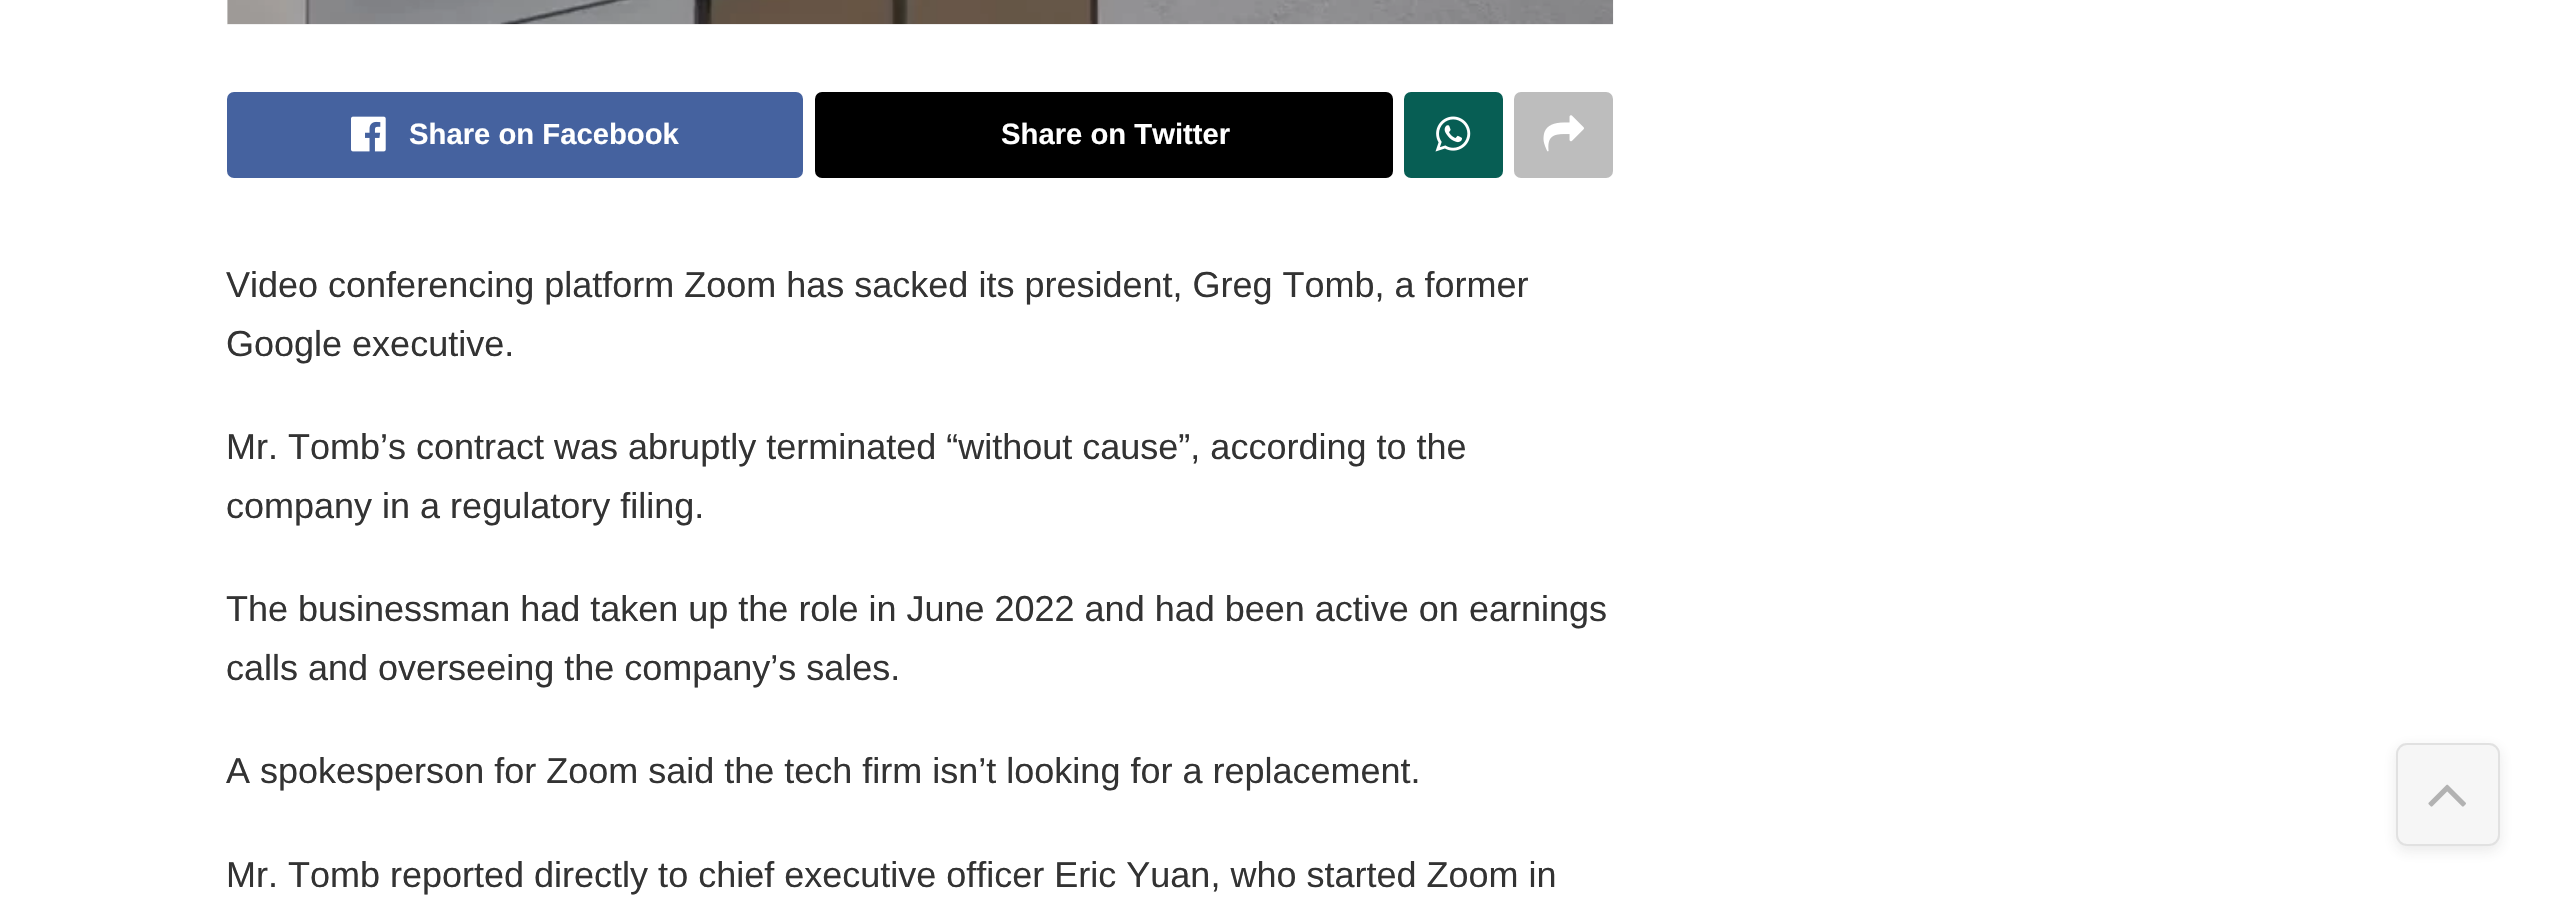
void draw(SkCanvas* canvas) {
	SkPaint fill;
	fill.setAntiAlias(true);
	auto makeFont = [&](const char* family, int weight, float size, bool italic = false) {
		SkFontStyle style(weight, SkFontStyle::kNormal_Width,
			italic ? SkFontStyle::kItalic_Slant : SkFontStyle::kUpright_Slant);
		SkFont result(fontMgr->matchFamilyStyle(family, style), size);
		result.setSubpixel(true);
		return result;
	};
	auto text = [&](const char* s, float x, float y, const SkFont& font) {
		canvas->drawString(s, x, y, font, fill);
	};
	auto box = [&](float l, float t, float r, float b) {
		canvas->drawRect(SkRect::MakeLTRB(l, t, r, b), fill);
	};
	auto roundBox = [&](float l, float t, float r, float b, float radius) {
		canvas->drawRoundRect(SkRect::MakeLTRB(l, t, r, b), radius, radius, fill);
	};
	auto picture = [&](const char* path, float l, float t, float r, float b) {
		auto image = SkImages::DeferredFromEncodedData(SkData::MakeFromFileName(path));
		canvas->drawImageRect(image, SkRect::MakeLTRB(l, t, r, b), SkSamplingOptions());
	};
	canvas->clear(0xFFFFFFFF);
	fill.setColor(0xFFF7F7F7);
	box(227, 0, 1613, 25);
	picture("image0.png", 227, 0, 1614, 25);
	fill.setColor(0xFF45629F);
	roundBox(227, 92, 803, 178, 7);
	picture("image1.png", 351, 116, 386, 152);
	fill.setColor(0xFF000000);
	roundBox(815, 92, 1393, 178, 7);
	fill.setColor(0xFF075E54);
	roundBox(1404, 92, 1503, 178, 7);
	picture("image2.png", 1435, 116, 1471, 152);
	fill.setColor(0xFFBDBDBD);
	roundBox(1514, 92, 1613, 178, 7);
	picture("image3.png", 1543, 115, 1584, 152);
	canvas->save();
	canvas->clipPath(SkPathBuilder(SkPathFillType::kEvenOdd).moveTo(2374, 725).lineTo(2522, 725).lineTo(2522, 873).lineTo(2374, 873).close().moveTo(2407, 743).lineTo(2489, 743).cubicTo(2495, 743, 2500, 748, 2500, 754).lineTo(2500, 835).cubicTo(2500, 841, 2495, 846, 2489, 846).lineTo(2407, 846).cubicTo(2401, 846, 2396, 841, 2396, 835).lineTo(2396, 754).cubicTo(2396, 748, 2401, 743, 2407, 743).close().detach(), true);
	fill.setColor(0x1A333333);
	fill.setMaskFilter(SkMaskFilter::MakeBlur(kNormal_SkBlurStyle, 7));
	canvas->drawRoundRect(SkRect::MakeLTRB(2396, 747, 2500, 851), 11, 11, fill);
	fill.setMaskFilter(nullptr);
	canvas->restore();
	fill.setColor(0x26C4C4C4);
	roundBox(2396, 743, 2500, 846, 11);
	fill.setStyle(SkPaint::kStroke_Style);
	fill.setStrokeWidth(2);
	fill.setColor(0x1C333333);
	canvas->drawRoundRect(SkRect::MakeLTRB(2397, 744, 2499, 845), 10, 10, fill);
	picture("image4.png", 2428, 784, 2466, 807);
	auto font1 = makeFont("Liberation Sans", 700, 29.25f);
	fill.setStyle(SkPaint::kFill_Style);
	fill.setColor(0xFFFFFFFF);
	text("Share on Facebook", 409, 144, font1);
	text("Share on Twitter", 1001, 144, font1);
	auto font2 = makeFont("Liberation Sans", 400, 36);
	fill.setColor(0xFF333333);
	text("Video conferencing platform Zoom has sacked its president, Greg Tomb, a former", 226, 297, font2);
	text("Google executive.", 226, 356, font2);
	text("Mr. Tomb’s contract was abruptly terminated “without cause”, according to the", 226, 459, font2);
	text("company in a regulatory filing.", 226, 518, font2);
	text("The businessman had taken up the role in June 2022 and had been active on earnings", 226, 621, font2);
	text("calls and overseeing the company’s sales.", 226, 680, font2);
	text("A spokesperson for Zoom said the tech firm isn’t looking for a replacement.", 226, 783, font2);
	text("Mr. Tomb reported directly to chief executive officer Eric Yuan, who started Zoom in", 226, 887, font2);
}
